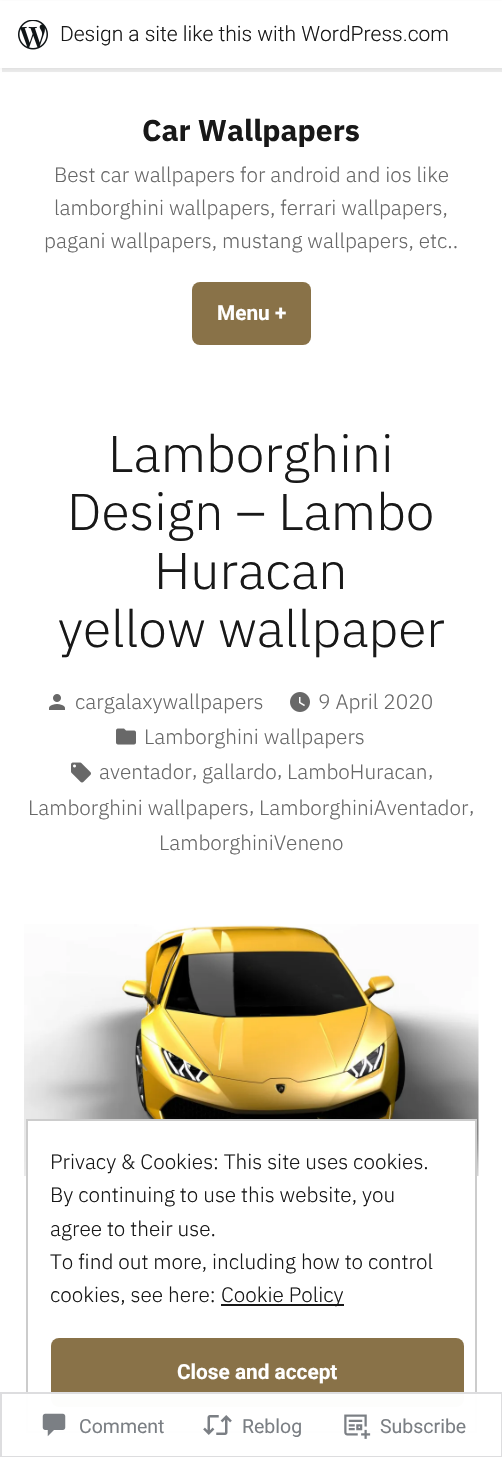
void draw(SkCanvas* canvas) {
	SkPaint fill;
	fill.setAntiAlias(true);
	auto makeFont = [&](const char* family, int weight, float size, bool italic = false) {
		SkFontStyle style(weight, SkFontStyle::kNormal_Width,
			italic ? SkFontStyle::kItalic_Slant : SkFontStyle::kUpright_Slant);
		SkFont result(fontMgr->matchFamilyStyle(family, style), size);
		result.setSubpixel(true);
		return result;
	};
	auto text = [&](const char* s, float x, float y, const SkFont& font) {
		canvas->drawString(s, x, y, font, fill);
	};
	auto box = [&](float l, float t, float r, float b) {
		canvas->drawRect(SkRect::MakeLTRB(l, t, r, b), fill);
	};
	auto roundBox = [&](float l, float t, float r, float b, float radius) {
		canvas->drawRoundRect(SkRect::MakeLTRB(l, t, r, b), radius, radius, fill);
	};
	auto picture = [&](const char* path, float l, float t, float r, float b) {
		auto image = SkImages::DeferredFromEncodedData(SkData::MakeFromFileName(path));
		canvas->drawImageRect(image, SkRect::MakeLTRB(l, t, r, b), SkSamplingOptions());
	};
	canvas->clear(0xFFFFFFFF);
	fill.setColor(0x0D000000);
	fill.setMaskFilter(SkMaskFilter::MakeBlur(kNormal_SkBlurStyle, 1.5f));
	canvas->drawRect(SkRect::MakeLTRB(0, 2, 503, 69), fill);
	fill.setMaskFilter(nullptr);
	fill.setColor(0x14000000);
	canvas->drawPath(SkPathBuilder().moveTo(2, 68).lineTo(2, 72).lineTo(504, 72).lineTo(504, 5).lineTo(502, 5).lineTo(502, 68).close().detach(), fill);
	fill.setColor(0xFFFFFFFF);
	box(0, 1, 502, 68);
	picture("image0.png", 18, 20, 48, 50);
	fill.setColor(0xFF897248);
	roundBox(192, 282, 311, 345, 8);
	picture("image1.png", 49, 694, 65, 710);
	picture("image2.png", 290, 692, 310, 712);
	picture("image3.png", 116, 728, 136, 745);
	picture("image4.png", 71, 762, 91, 783);
	picture("image5.png", 24, 924, 479, 1176);
	fill.setColor(0xFFFFFFFF);
	box(28, 1121, 475, 1176);
	fill.setStyle(SkPaint::kStroke_Style);
	fill.setStrokeWidth(2);
	fill.setColor(0xFFCCCCCC);
	canvas->drawRect(SkRect::MakeLTRB(27, 1120, 476, 1432), fill);
	fill.setStyle(SkPaint::kFill_Style);
	fill.setColor(0xFF181818);
	box(221, 1304, 344, 1306);
	fill.setColor(0xFF897248);
	roundBox(51, 1338, 464, 1407, 8);
	fill.setColor(0xFAFFFFFF);
	box(26, 1392, 477, 1433);
	fill.setStyle(SkPaint::kStroke_Style);
	fill.setColor(0xFADCDCDE);
	canvas->drawRect(SkRect::MakeLTRB(1, 1393, 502, 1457), fill);
	picture("image6.png", 42, 1413, 66, 1437);
	picture("image7.png", 203, 1415, 232, 1435);
	picture("image8.png", 344, 1414, 371, 1439);
	auto font1 = makeFont("Roboto", 300, 21);
	fill.setStyle(SkPaint::kFill_Style);
	fill.setColor(0xFF181818);
	text("Design a site like this with WordPress.com", 60, 41, font1);
	auto font2 = makeFont("IBM Plex Sans", 700, 30);
	text("Car Wallpapers", 142, 141, font2);
	auto font3 = makeFont("IBM Plex Sans", 300, 20.8f);
	fill.setColor(0xFF686868);
	text("Best car wallpapers for android and ios like", 54, 182, font3);
	text("lamborghini wallpapers, ferrari wallpapers,", 54, 215, font3);
	text("pagani wallpapers, mustang wallpapers, etc..", 44, 248, font3);
	auto font4 = makeFont("Roboto", 700, 20.8f);
	fill.setColor(0xFFFFFFFF);
	text("Menu +", 217, 320, font4);
	auto font5 = makeFont("IBM Plex Sans", 300, 51.75f);
	fill.setColor(0xFF181818);
	text("Lamborghini", 108, 472, font5);
	text("Design – Lambo", 67, 530, font5);
	text("Huracan", 154, 589, font5);
	text("yellow wallpaper", 58, 647, font5);
	fill.setColor(0xFF686868);
	text("cargalaxywallpapers", 75, 709, font3);
	text("9 April 2020", 318, 709, font3);
	text("Lamborghini wallpapers", 144, 744, font3);
	text("aventador", 99, 779, font3);
	text(",", 192, 777, font3);
	text("gallardo", 202, 779, font3);
	text(",", 277, 777, font3);
	text("LamboHuracan", 287, 779, font3);
	text(",", 428, 777, font3);
	text("Lamborghini wallpapers", 28, 815, font3);
	text(",", 249, 813, font3);
	text("LamborghiniAventador", 259, 815, font3);
	text(",", 469, 813, font3);
	text("LamborghiniVeneno", 159, 850, font3);
	fill.setColor(0xFF181818);
	text("Privacy & Cookies: This site uses cookies.", 50, 1169, font3);
	text("By continuing to use this website, you", 50, 1202, font3);
	text("agree to their use.", 50, 1236, font3);
	text("To find out more, including how to control", 50, 1269, font3);
	text("cookies, see here:", 50, 1302, font3);
	text("Cookie Policy", 221, 1302, font3);
	fill.setColor(0xFFFFFFFF);
	text("Close and accept", 177, 1379, font4);
	auto font6 = makeFont("Roboto", 400, 19.5f);
	fill.setColor(0xFF7B7F84);
	text("Comment", 79, 1433, font6);
	text("Reblog", 242, 1433, font6);
	text("Subscribe", 380, 1433, font6);
}
